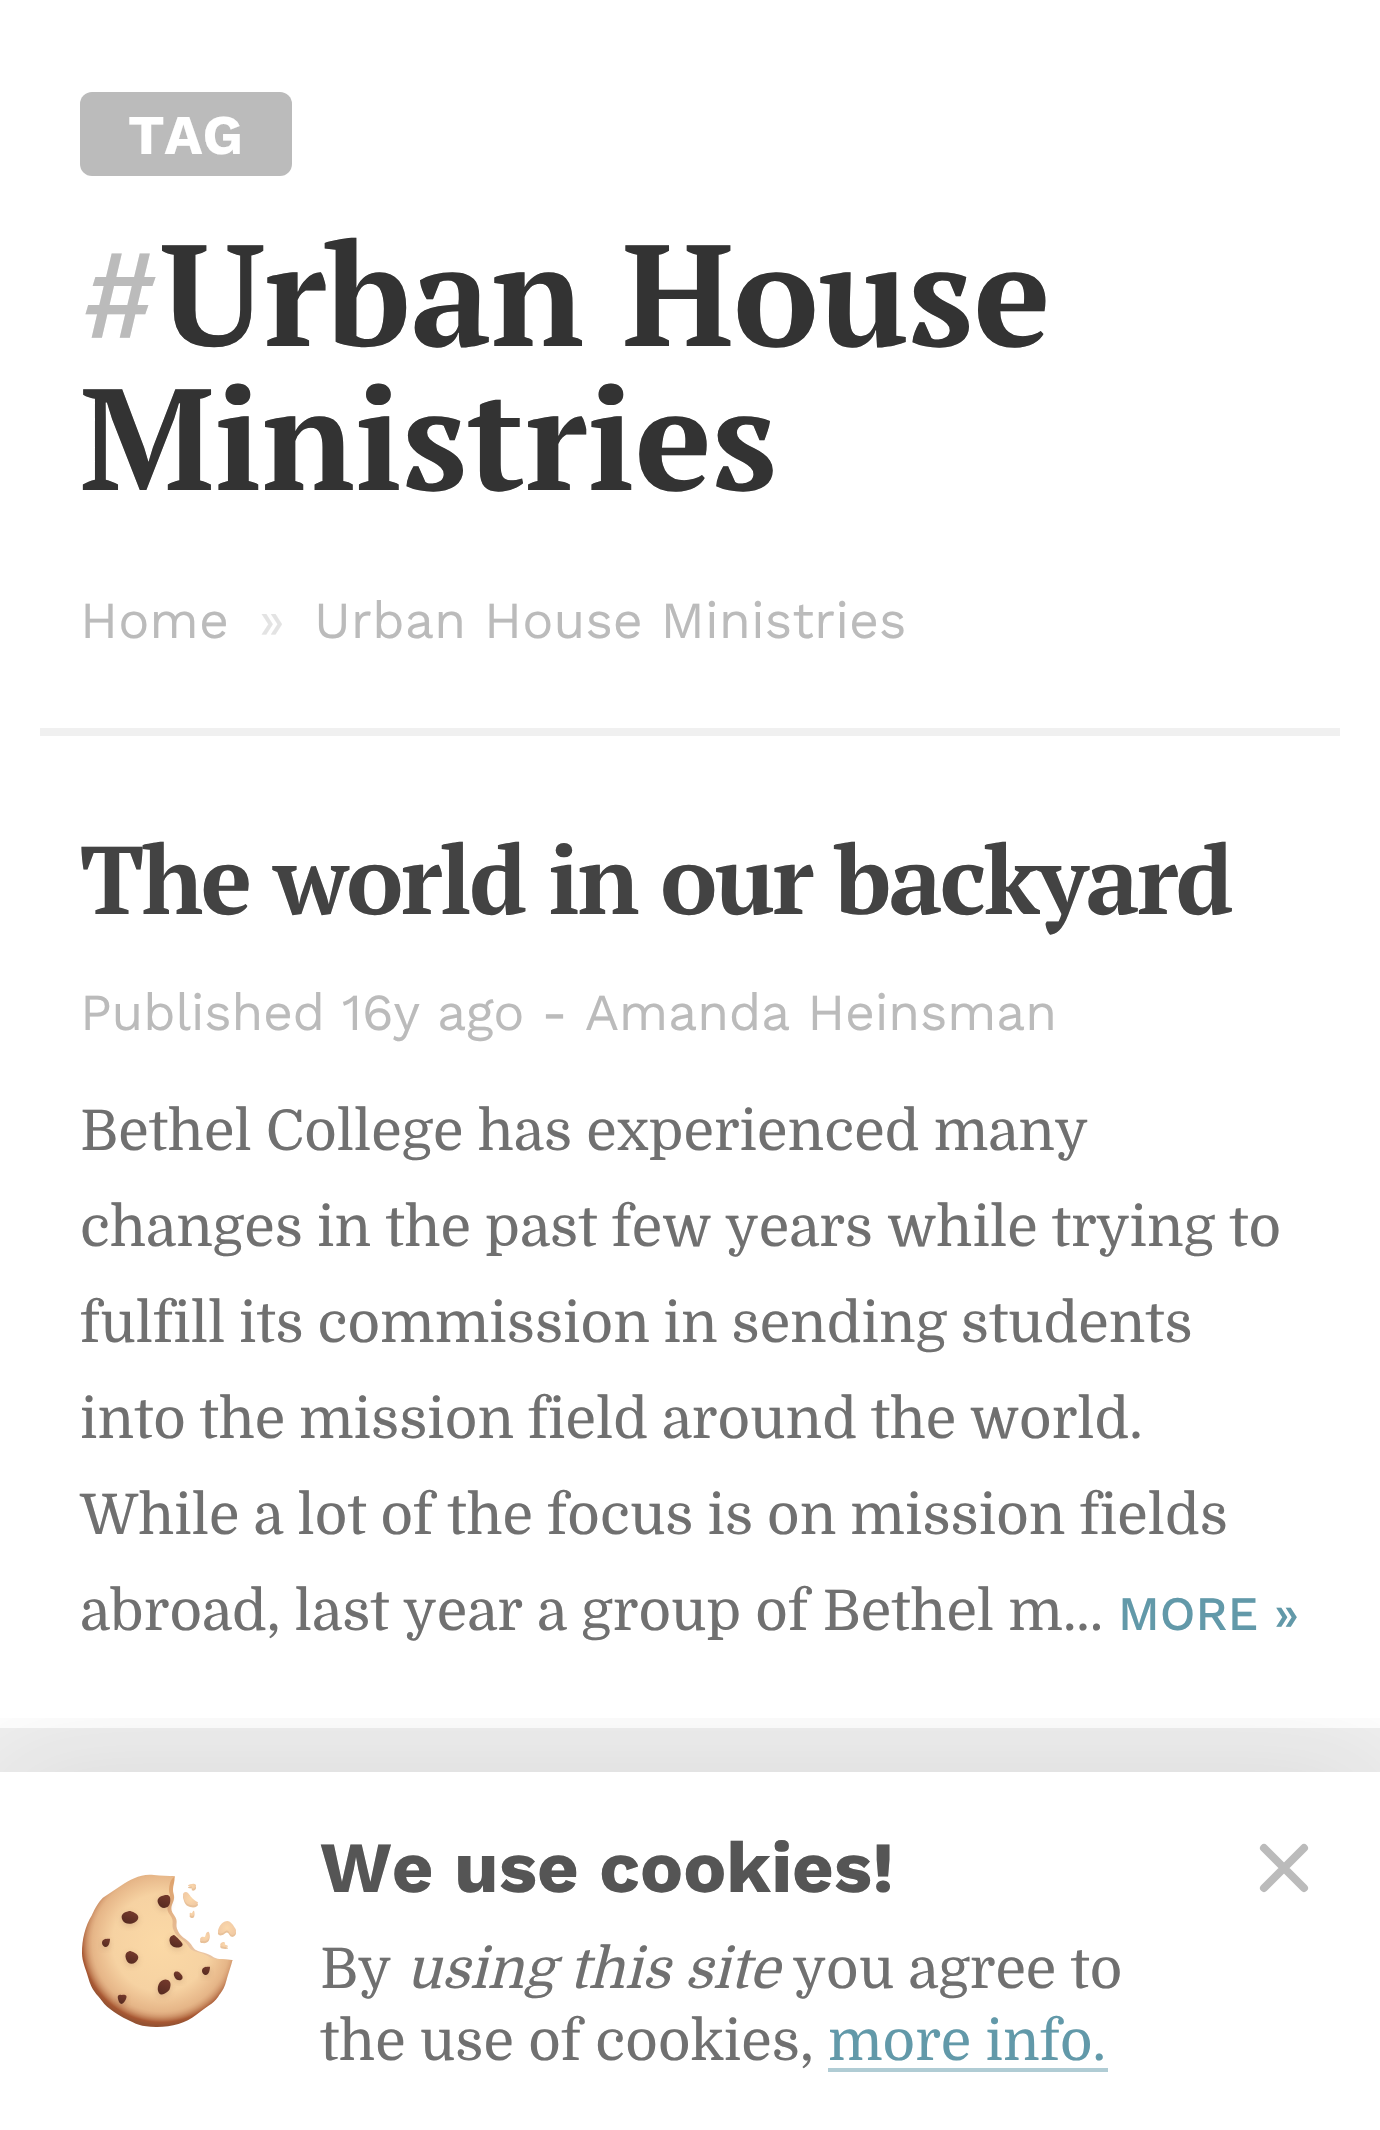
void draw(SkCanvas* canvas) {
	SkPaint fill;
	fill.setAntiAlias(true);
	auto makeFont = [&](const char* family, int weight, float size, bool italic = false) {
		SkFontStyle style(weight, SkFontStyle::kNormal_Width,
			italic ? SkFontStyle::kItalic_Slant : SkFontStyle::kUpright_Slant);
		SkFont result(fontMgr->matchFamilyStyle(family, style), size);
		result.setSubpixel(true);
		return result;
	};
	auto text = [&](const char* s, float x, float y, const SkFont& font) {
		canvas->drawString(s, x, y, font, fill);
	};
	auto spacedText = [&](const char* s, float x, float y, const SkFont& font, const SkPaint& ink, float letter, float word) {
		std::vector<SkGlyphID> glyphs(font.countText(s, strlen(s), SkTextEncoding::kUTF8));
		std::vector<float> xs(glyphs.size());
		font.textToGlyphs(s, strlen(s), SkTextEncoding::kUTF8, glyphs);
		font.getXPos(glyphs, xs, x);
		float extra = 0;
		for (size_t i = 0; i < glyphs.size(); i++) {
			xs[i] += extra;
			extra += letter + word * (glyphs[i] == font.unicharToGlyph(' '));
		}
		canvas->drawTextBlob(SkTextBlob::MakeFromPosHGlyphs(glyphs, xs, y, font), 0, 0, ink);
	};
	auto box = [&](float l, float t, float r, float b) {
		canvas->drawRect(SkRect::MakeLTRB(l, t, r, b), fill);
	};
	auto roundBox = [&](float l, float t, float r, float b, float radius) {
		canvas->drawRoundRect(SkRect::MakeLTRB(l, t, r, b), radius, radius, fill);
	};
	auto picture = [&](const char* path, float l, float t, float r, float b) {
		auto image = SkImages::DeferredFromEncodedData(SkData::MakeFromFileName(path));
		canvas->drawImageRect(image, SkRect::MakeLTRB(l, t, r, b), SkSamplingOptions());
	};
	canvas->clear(0xFFFFFFFF);
	fill.setColor(0xFFBBBBBB);
	roundBox(80, 92, 292, 176, 12);
	fill.setColor(0xFFF0F0F0);
	box(40, 728, 1340, 736);
	box(0, 1728, 1380, 1772);
	canvas->save();
	canvas->clipRect(SkRect::MakeLTRB(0, 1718, 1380, 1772));
	fill.setColor(0x1A000000);
	fill.setMaskFilter(SkMaskFilter::MakeBlur(kNormal_SkBlurStyle, 60));
	canvas->drawRect(SkRect::MakeLTRB(0, 1768, 1380, 2128), fill);
	fill.setMaskFilter(nullptr);
	canvas->restore();
	picture("image0.png", 82, 1874, 236, 2027);
	fill.setStyle(SkPaint::kStroke_Style);
	fill.setStrokeWidth(8);
	fill.setStrokeCap(SkPaint::kRound_Cap);
	fill.setColor(0xFFBBBBBB);
	canvas->drawPath(SkPathBuilder().moveTo(1264, 1848).lineTo(1304, 1888).moveTo(1304, 1848).lineTo(1264, 1888).detach(), fill);
	fill.setStyle(SkPaint::kFill_Style);
	fill.setColor(0xFFB0CCD4);
	box(828, 2068, 1108, 2072);
	auto font1 = makeFont("Work Sans", 700, 56);
	fill.setColor(0xFFFFFFFF);
	text("TAG", 128, 154, font1);
	auto font2 = makeFont("PT Serif", 700, 144);
	fill.setColor(0xFFBBBBBB);
	text("#", 80, 346, font2);
	fill.setColor(0xFF333333);
	text("Urban House", 161, 346, font2);
	text("Ministries", 80, 490, font2);
	auto font3 = makeFont("Work Sans", 400, 52);
	fill.setColor(0xFFBBBBBB);
	text("Home", 80, 638, font3);
	fill.setColor(0xFFE3E3E3);
	text("»", 259, 638, font3);
	fill.setColor(0xFFBBBBBB);
	text("Urban House Ministries", 314, 638, font3);
	auto font4 = makeFont("PT Serif", 700, 96);
	fill.setColor(0xFF434343);
	spacedText("The world in our backyard", 80, 914, font4, fill, -2.4f, 0);
	fill.setColor(0xFFBBBBBB);
	spacedText("Published 16y ago - Amanda Heinsman", 80, 1030, font3, fill, -0.4f, 0);
	auto font5 = makeFont("Domine", 400, 56);
	fill.setColor(0xFF707070);
	text("Bethel College has experienced many", 80, 1150, font5);
	text("changes in the past few years while trying to", 80, 1246, font5);
	spacedText("fulfill its commission in sending students", 80, 1342, font5, fill, 0, -0.5f);
	spacedText("into the mission field around the world.", 80, 1438, font5, fill, 0, -0.5f);
	spacedText("While a lot of the focus is on mission fields", 80, 1534, font5, fill, 0, -0.25f);
	text("abroad, last year a group of Bethel m...", 80, 1630, font5);
	auto font6 = makeFont("Work Sans", 500, 48);
	fill.setColor(0xFF6299A9);
	text("MORE »", 1118, 1630, font6);
	auto font7 = makeFont("Work Sans", 700, 72);
	fill.setColor(0xFF555555);
	text("We use cookies!", 320, 1892, font7);
	fill.setColor(0xFF707070);
	text("By", 320, 1988, font5);
	auto font8 = makeFont("Domine", 400, 56, true);
	text("using this site", 406, 1988, font8);
	text("you agree to", 793, 1988, font5);
	text("the use of cookies,", 320, 2060, font5);
	fill.setColor(0xFF6299A9);
	text("more info.", 828, 2060, font5);
}
